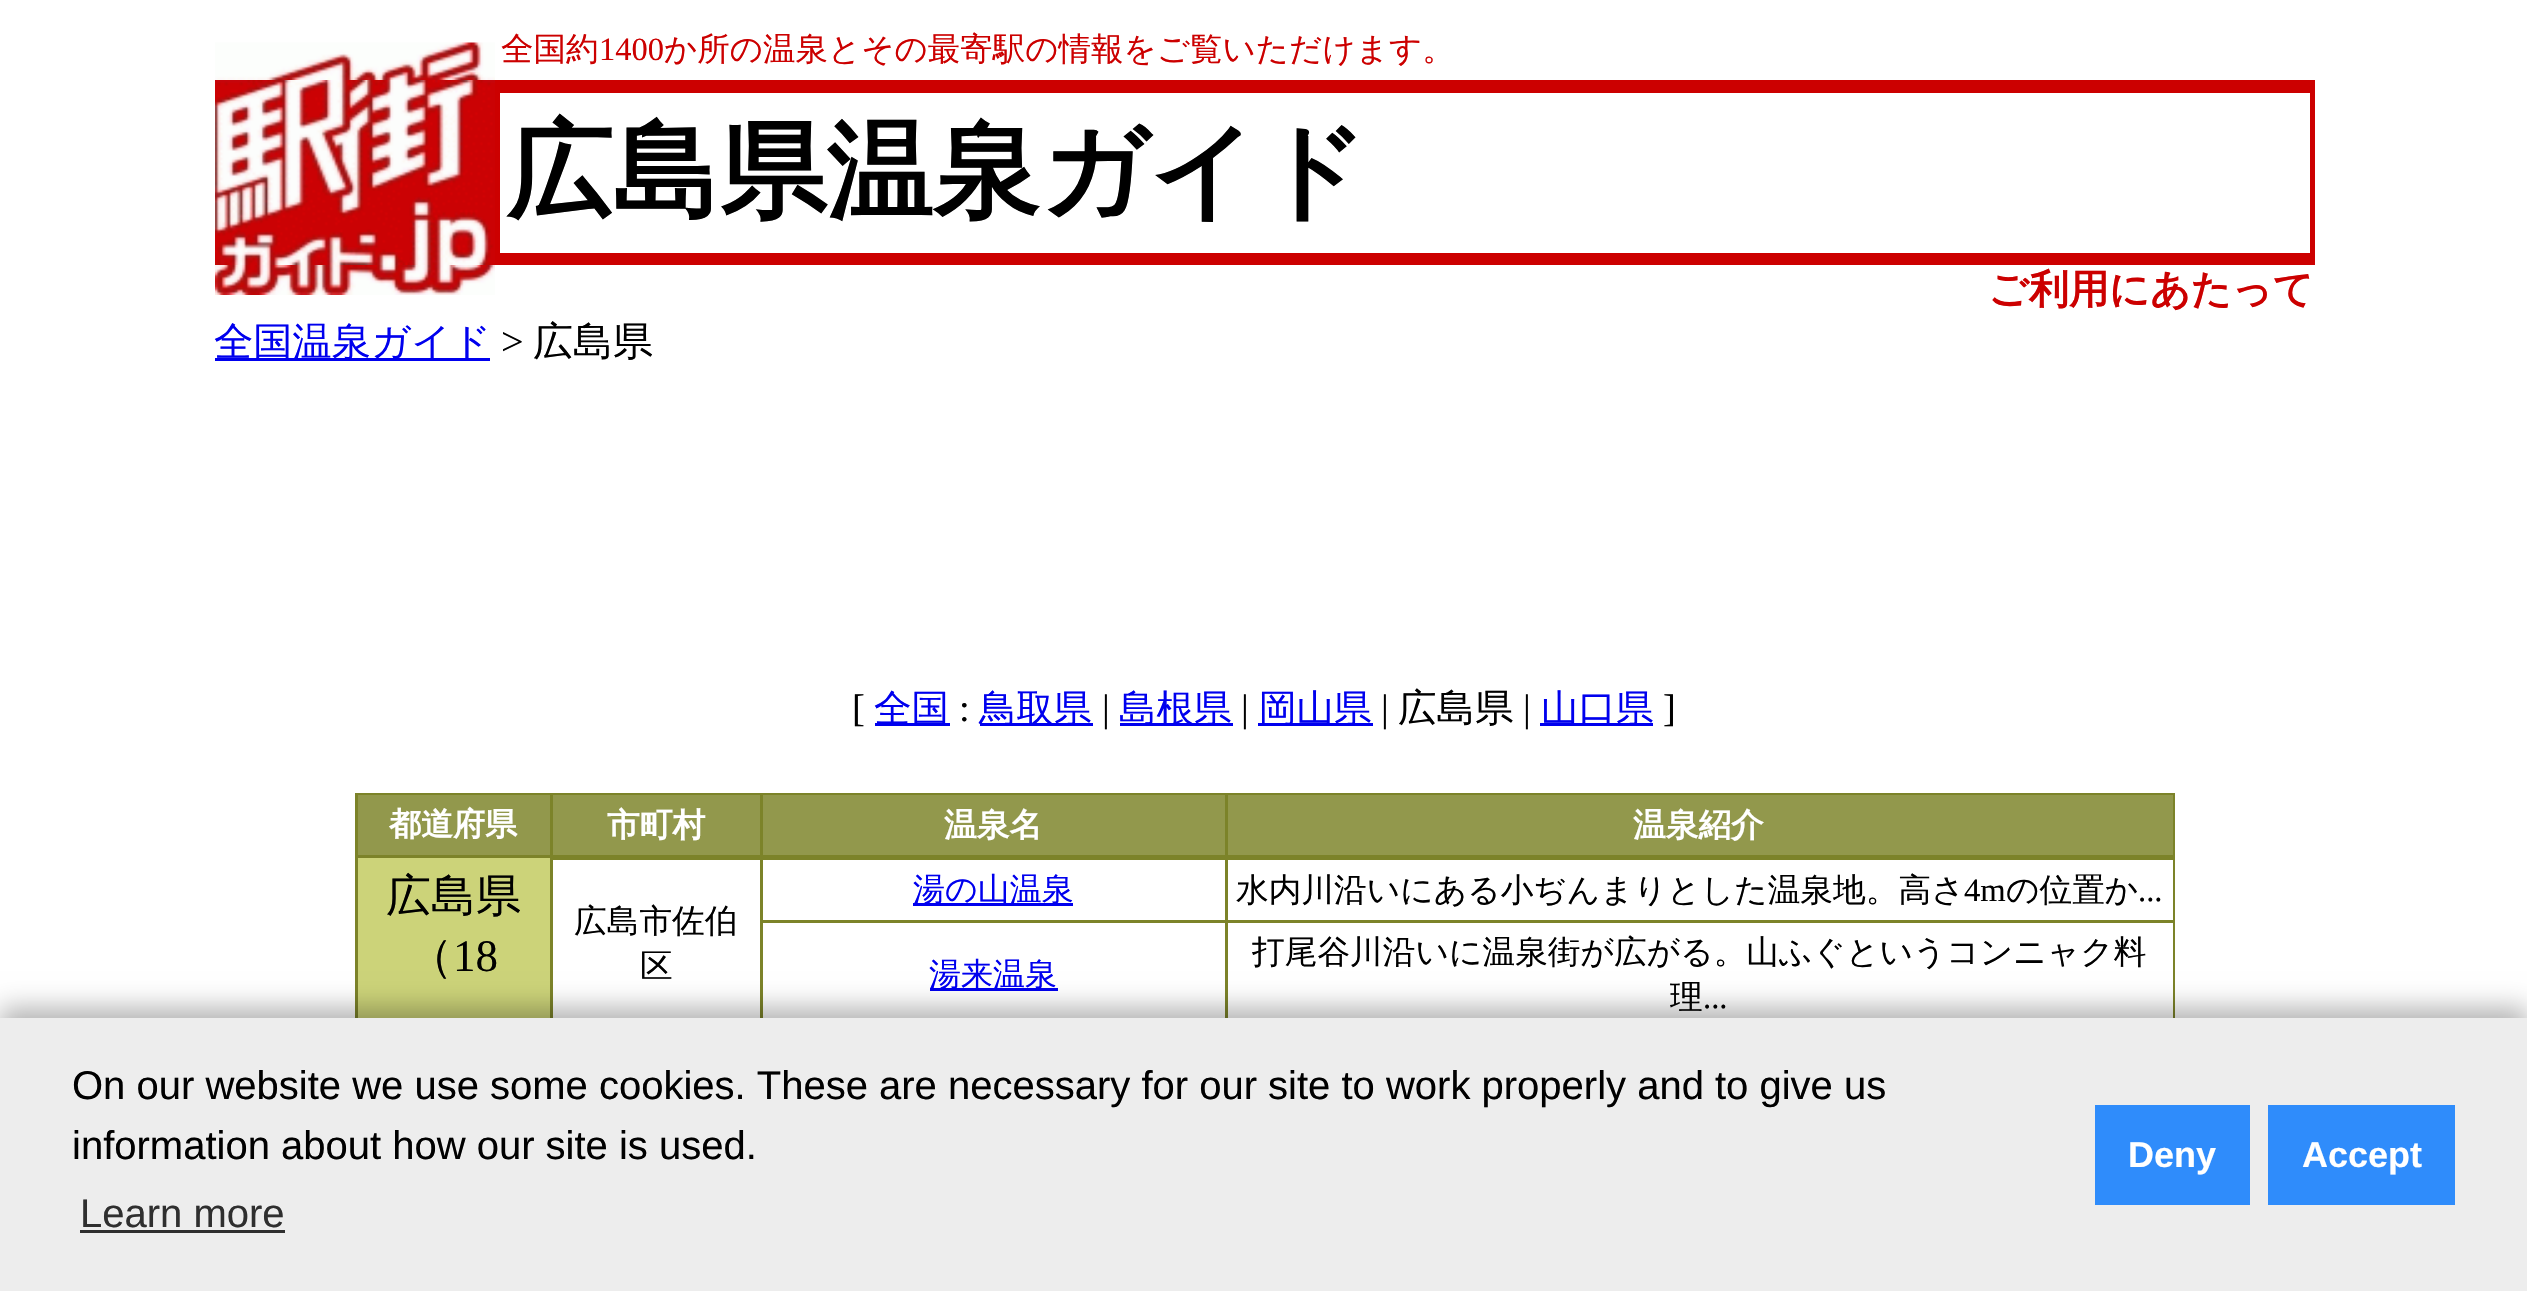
void draw(SkCanvas* canvas) {
	SkPaint fill;
	fill.setAntiAlias(true);
	auto makeFont = [&](const char* family, int weight, float size, bool italic = false) {
		SkFontStyle style(weight, SkFontStyle::kNormal_Width,
			italic ? SkFontStyle::kItalic_Slant : SkFontStyle::kUpright_Slant);
		SkFont result(fontMgr->matchFamilyStyle(family, style), size);
		result.setSubpixel(true);
		return result;
	};
	auto text = [&](const char* s, float x, float y, const SkFont& font) {
		canvas->drawString(s, x, y, font, fill);
	};
	auto box = [&](float l, float t, float r, float b) {
		canvas->drawRect(SkRect::MakeLTRB(l, t, r, b), fill);
	};
	auto picture = [&](const char* path, float l, float t, float r, float b) {
		auto image = SkImages::DeferredFromEncodedData(SkData::MakeFromFileName(path));
		canvas->drawImageRect(image, SkRect::MakeLTRB(l, t, r, b), SkSamplingOptions());
	};
	canvas->clear(0xFFFFFFFF);
	picture("image0.png", 215, 42, 495, 80);
	picture("image1.png", 215, 80, 495, 265);
	fill.setColor(0xFFCC0000);
	box(495, 80, 2315, 265);
	fill.setColor(0xFFFFFFFF);
	box(500, 93, 2310, 253);
	picture("image2.png", 215, 265, 495, 295);
	fill.setColor(0xFF0000EE);
	box(215, 358, 490, 361);
	box(875, 723, 950, 726);
	box(980, 723, 1093, 726);
	box(1120, 723, 1233, 726);
	box(1258, 723, 1373, 726);
	box(1540, 723, 1653, 726);
	fill.setColor(0xFF7C8329);
	box(355, 793, 2175, 1018);
	fill.setColor(0xFF92984C);
	box(358, 795, 550, 855);
	box(553, 795, 760, 855);
	box(763, 795, 1225, 855);
	box(1228, 795, 2173, 855);
	fill.setColor(0xFFCCD379);
	box(358, 858, 550, 1018);
	fill.setColor(0xFFFFFFFF);
	box(763, 860, 1225, 920);
	fill.setColor(0xFF0000EE);
	box(913, 903, 1073, 906);
	fill.setColor(0xFFFFFFFF);
	box(1228, 860, 2173, 920);
	box(553, 860, 760, 1018);
	box(763, 923, 1225, 1018);
	fill.setColor(0xFF0000EE);
	box(930, 988, 1058, 991);
	fill.setColor(0xFFFFFFFF);
	box(1228, 923, 2173, 1018);
	fill.setColor(0x4D000000);
	fill.setMaskFilter(SkMaskFilter::MakeBlur(kNormal_SkBlurStyle, 12.5f));
	canvas->drawRect(SkRect::MakeLTRB(0, 1008, 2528, 1283), fill);
	fill.setMaskFilter(nullptr);
	fill.setColor(0xFFEDEDED);
	box(0, 1018, 2527, 1291);
	fill.setColor(0xFF2F2F2F);
	box(80, 1230, 285, 1233);
	fill.setColor(0xFF2F8CFB);
	box(2095, 1105, 2250, 1205);
	box(2268, 1105, 2455, 1205);
	auto font1 = makeFont("WenQuanYi Zen Hei", 500, 32.5f);
	fill.setColor(0xFFCC0000);
	text("全国約", 501, 60, font1);
	auto font2 = makeFont("Liberation Serif", 400, 32.5f);
	text("1400", 599, 60, font2);
	text("か所の温泉とその最寄駅の情報をご覧いただけます。", 664, 60, font1);
	auto font3 = makeFont("WenQuanYi Zen Hei", 700, 106.75f);
	fill.setColor(0xFF000000);
	text("広島県温泉ガイド", 506, 208, font3);
	auto font4 = makeFont("WenQuanYi Zen Hei", 700, 40);
	fill.setColor(0xFFCC0000);
	text("ご利用にあたって", 1988, 303, font4);
	auto font5 = makeFont("WenQuanYi Zen Hei", 500, 39.25f);
	fill.setColor(0xFF0000EE);
	text("全国温泉ガイド", 214, 355, font5);
	auto font6 = makeFont("Liberation Serif", 400, 40);
	fill.setColor(0xFF000000);
	text(">", 501, 355, font6);
	auto font7 = makeFont("WenQuanYi Zen Hei", 500, 40);
	text("広島県", 533, 355, font7);
	auto font8 = makeFont("Liberation Serif", 400, 38.5f);
	text("[", 852, 721, font8);
	auto font9 = makeFont("WenQuanYi Zen Hei", 500, 37.5f);
	fill.setColor(0xFF0000EE);
	text("全国", 874, 721, font9);
	fill.setColor(0xFF000000);
	text(":", 959, 721, font8);
	fill.setColor(0xFF0000EE);
	text("鳥取県", 979, 721, font9);
	fill.setColor(0xFF000000);
	text("|", 1102, 721, font8);
	fill.setColor(0xFF0000EE);
	text("島根県", 1119, 721, font9);
	fill.setColor(0xFF000000);
	text("|", 1241, 721, font8);
	fill.setColor(0xFF0000EE);
	text("岡山県", 1259, 721, font9);
	fill.setColor(0xFF000000);
	text("|", 1381, 721, font8);
	auto font10 = makeFont("WenQuanYi Zen Hei", 500, 38.5f);
	text("広島県", 1398, 721, font10);
	text("|", 1523, 721, font8);
	fill.setColor(0xFF0000EE);
	text("山口県", 1541, 721, font9);
	fill.setColor(0xFF000000);
	text("]", 1663, 721, font8);
	auto font11 = makeFont("WenQuanYi Zen Hei", 700, 32);
	fill.setColor(0xFFFFFFFF);
	text("都道府県", 389, 835, font11);
	auto font12 = makeFont("WenQuanYi Zen Hei", 700, 32.7f);
	text("市町村", 607, 836, font12);
	text("温泉名", 944, 836, font12);
	text("温泉紹介", 1633, 836, font12);
	auto font13 = makeFont("WenQuanYi Zen Hei", 500, 45);
	fill.setColor(0xFF000000);
	text("広島県", 386, 911, font13);
	text("（", 408, 971, font13);
	auto font14 = makeFont("Liberation Serif", 400, 45);
	text("18", 453, 971, font14);
	auto font15 = makeFont("WenQuanYi Zen Hei", 500, 32);
	fill.setColor(0xFF0000EE);
	text("湯の山温泉", 913, 900, font15);
	auto font16 = makeFont("WenQuanYi Zen Hei", 500, 32.7f);
	fill.setColor(0xFF000000);
	text("水内川沿いにある小ぢんまりとした温泉地。高さ", 1236, 901, font16);
	auto font17 = makeFont("Liberation Serif", 400, 32.7f);
	text("4m", 1964, 901, font17);
	text("の位置か", 2006, 901, font16);
	text("...", 2138, 901, font17);
	text("広島市佐伯", 574, 932, font16);
	text("区", 640, 977, font16);
	fill.setColor(0xFF0000EE);
	text("湯来温泉", 929, 985, font15);
	fill.setColor(0xFF000000);
	text("打尾谷川沿いに温泉街が広がる。山ふぐというコンニャク料", 1252, 963, font16);
	text("理", 1670, 1008, font16);
	text("...", 1703, 1008, font17);
	auto font18 = makeFont("Liberation Sans", 400, 40);
	text("On our website we use some cookies. These are necessary for our site to work properly and to give us", 72, 1099, font18);
	text("information about how our site is used.", 72, 1159, font18);
	fill.setColor(0xFF2F2F2F);
	text("Learn more", 80, 1227, font18);
	auto font19 = makeFont("Liberation Sans", 700, 36);
	fill.setColor(0xFFFFFFFF);
	text("Deny", 2128, 1167, font19);
	text("Accept", 2302, 1167, font19);
}
